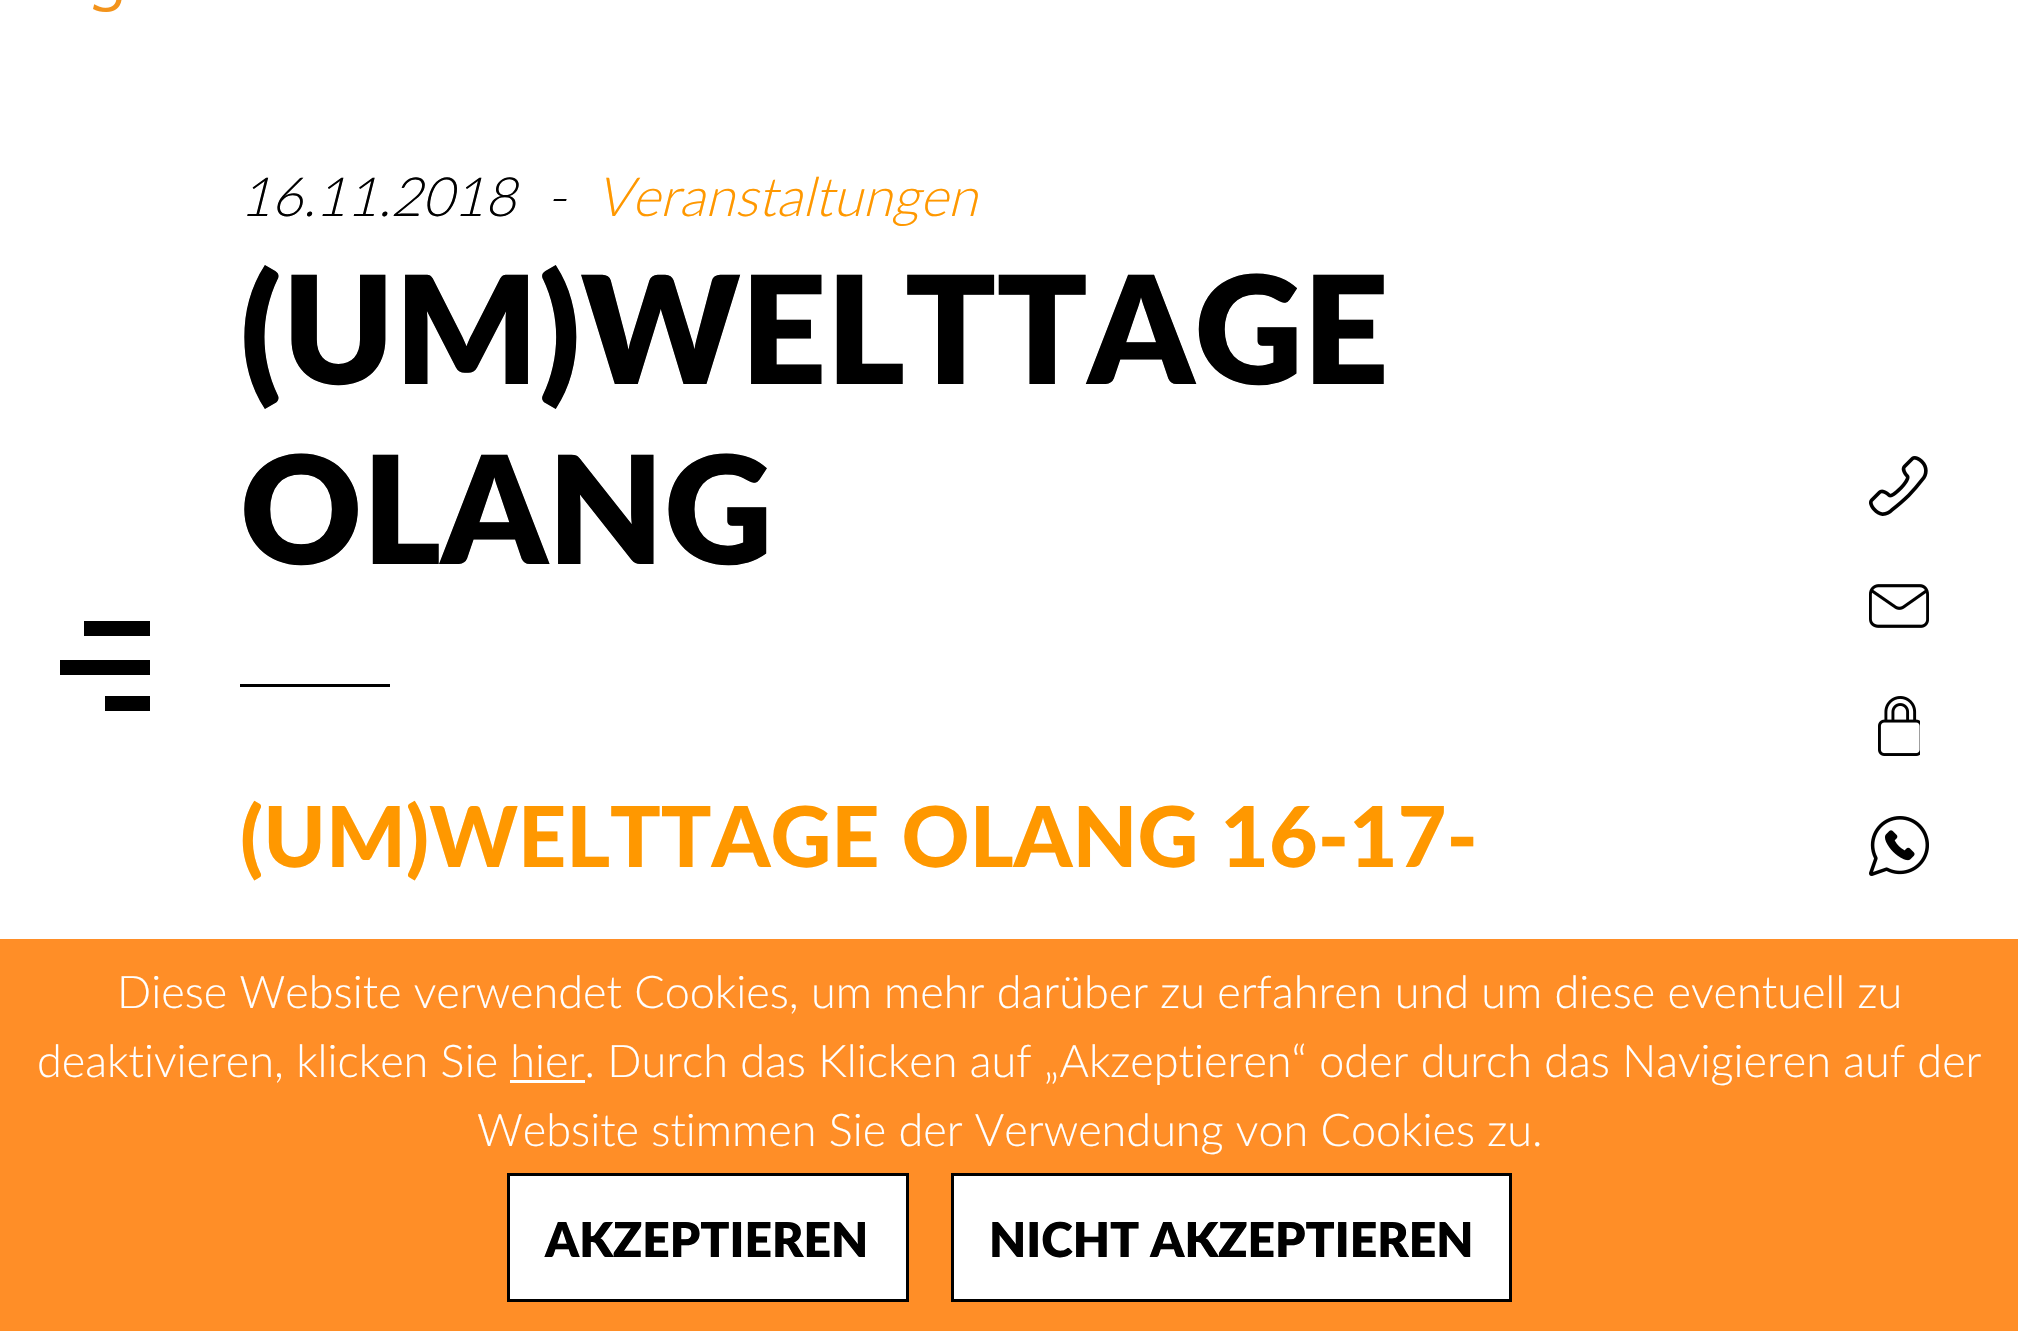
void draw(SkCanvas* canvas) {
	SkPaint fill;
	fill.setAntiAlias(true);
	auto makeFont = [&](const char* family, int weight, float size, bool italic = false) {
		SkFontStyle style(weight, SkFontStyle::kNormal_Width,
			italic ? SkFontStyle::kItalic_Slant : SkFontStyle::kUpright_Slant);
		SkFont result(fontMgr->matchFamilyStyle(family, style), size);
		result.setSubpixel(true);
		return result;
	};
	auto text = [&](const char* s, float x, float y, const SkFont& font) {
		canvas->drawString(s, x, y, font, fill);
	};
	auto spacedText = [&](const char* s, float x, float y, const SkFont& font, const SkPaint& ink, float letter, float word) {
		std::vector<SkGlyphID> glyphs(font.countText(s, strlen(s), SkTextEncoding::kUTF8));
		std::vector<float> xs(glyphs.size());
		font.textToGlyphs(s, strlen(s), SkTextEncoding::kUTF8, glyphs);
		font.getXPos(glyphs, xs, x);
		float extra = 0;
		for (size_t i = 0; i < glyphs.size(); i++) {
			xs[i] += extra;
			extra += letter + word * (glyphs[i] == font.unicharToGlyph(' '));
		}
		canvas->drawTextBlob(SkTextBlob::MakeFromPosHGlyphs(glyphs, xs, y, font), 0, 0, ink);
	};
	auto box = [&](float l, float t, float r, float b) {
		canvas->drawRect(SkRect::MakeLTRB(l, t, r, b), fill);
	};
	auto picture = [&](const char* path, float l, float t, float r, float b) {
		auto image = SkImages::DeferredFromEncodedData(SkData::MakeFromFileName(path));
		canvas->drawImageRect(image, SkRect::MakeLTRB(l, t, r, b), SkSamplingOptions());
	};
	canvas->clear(0xFFFFFFFF);
	picture("image0.png", 93, 0, 122, 12);
	fill.setColor(0xFF000000);
	box(84, 621, 150, 636);
	box(60, 660, 150, 675);
	box(105, 696, 150, 711);
	box(240, 684, 390, 687);
	picture("image1.png", 1869, 456, 1928, 516);
	picture("image2.png", 1869, 584, 1929, 628);
	picture("image3.png", 1878, 696, 1920, 756);
	picture("image4.png", 1869, 816, 1929, 876);
	fill.setColor(0xFFFF8E27);
	box(0, 939, 2018, 1331);
	fill.setColor(0xFFFFFFFF);
	box(510, 1080, 585, 1083);
	canvas->drawRect(SkRect::MakeLTRB(508.5f, 1174.5f, 907.5f, 1300.5f), fill);
	fill.setStyle(SkPaint::kStroke_Style);
	fill.setStrokeWidth(3);
	fill.setColor(0xFF000000);
	canvas->drawRect(SkRect::MakeLTRB(508.5f, 1174.5f, 907.5f, 1300.5f), fill);
	fill.setStyle(SkPaint::kFill_Style);
	fill.setColor(0xFFFFFFFF);
	canvas->drawRect(SkRect::MakeLTRB(952.5f, 1174.5f, 1510.5f, 1300.5f), fill);
	fill.setStyle(SkPaint::kStroke_Style);
	fill.setColor(0xFF000000);
	canvas->drawRect(SkRect::MakeLTRB(952.5f, 1174.5f, 1510.5f, 1300.5f), fill);
	auto font1 = makeFont("Lato", 300, 54, true);
	fill.setStyle(SkPaint::kFill_Style);
	text("16.11.2018", 240, 216, font1);
	text("-", 546, 216, font1);
	fill.setColor(0xFFFF9800);
	text("Veranstaltungen", 596, 216, font1);
	auto font2 = makeFont("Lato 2", 900, 150);
	fill.setColor(0xFF000000);
	text("(UM)WELTTAGE", 240, 384, font2);
	text("OLANG", 240, 564, font2);
	auto font3 = makeFont("Lato", 900, 84);
	fill.setColor(0xFFFF9800);
	spacedText("(UM)WELTTAGE OLANG 16-17-", 240, 867, font3, fill, 0, 2);
	auto font4 = makeFont("Lato", 300, 45);
	fill.setColor(0xFFFFFFFF);
	text("Diese Website verwendet Cookies, um mehr darüber zu erfahren und um diese eventuell zu", 117, 1008, font4);
	text("deaktivieren, klicken Sie hier. Durch das Klicken auf „Akzeptieren“ oder durch das Navigieren auf der", 37, 1077, font4);
	text("Website stimmen Sie der Verwendung von Cookies zu.", 477, 1146, font4);
	auto font5 = makeFont("Lato 2", 900, 48);
	fill.setColor(0xFF000000);
	text("AKZEPTIEREN", 545, 1257, font5);
	text("NICHT AKZEPTIEREN", 989, 1257, font5);
}
